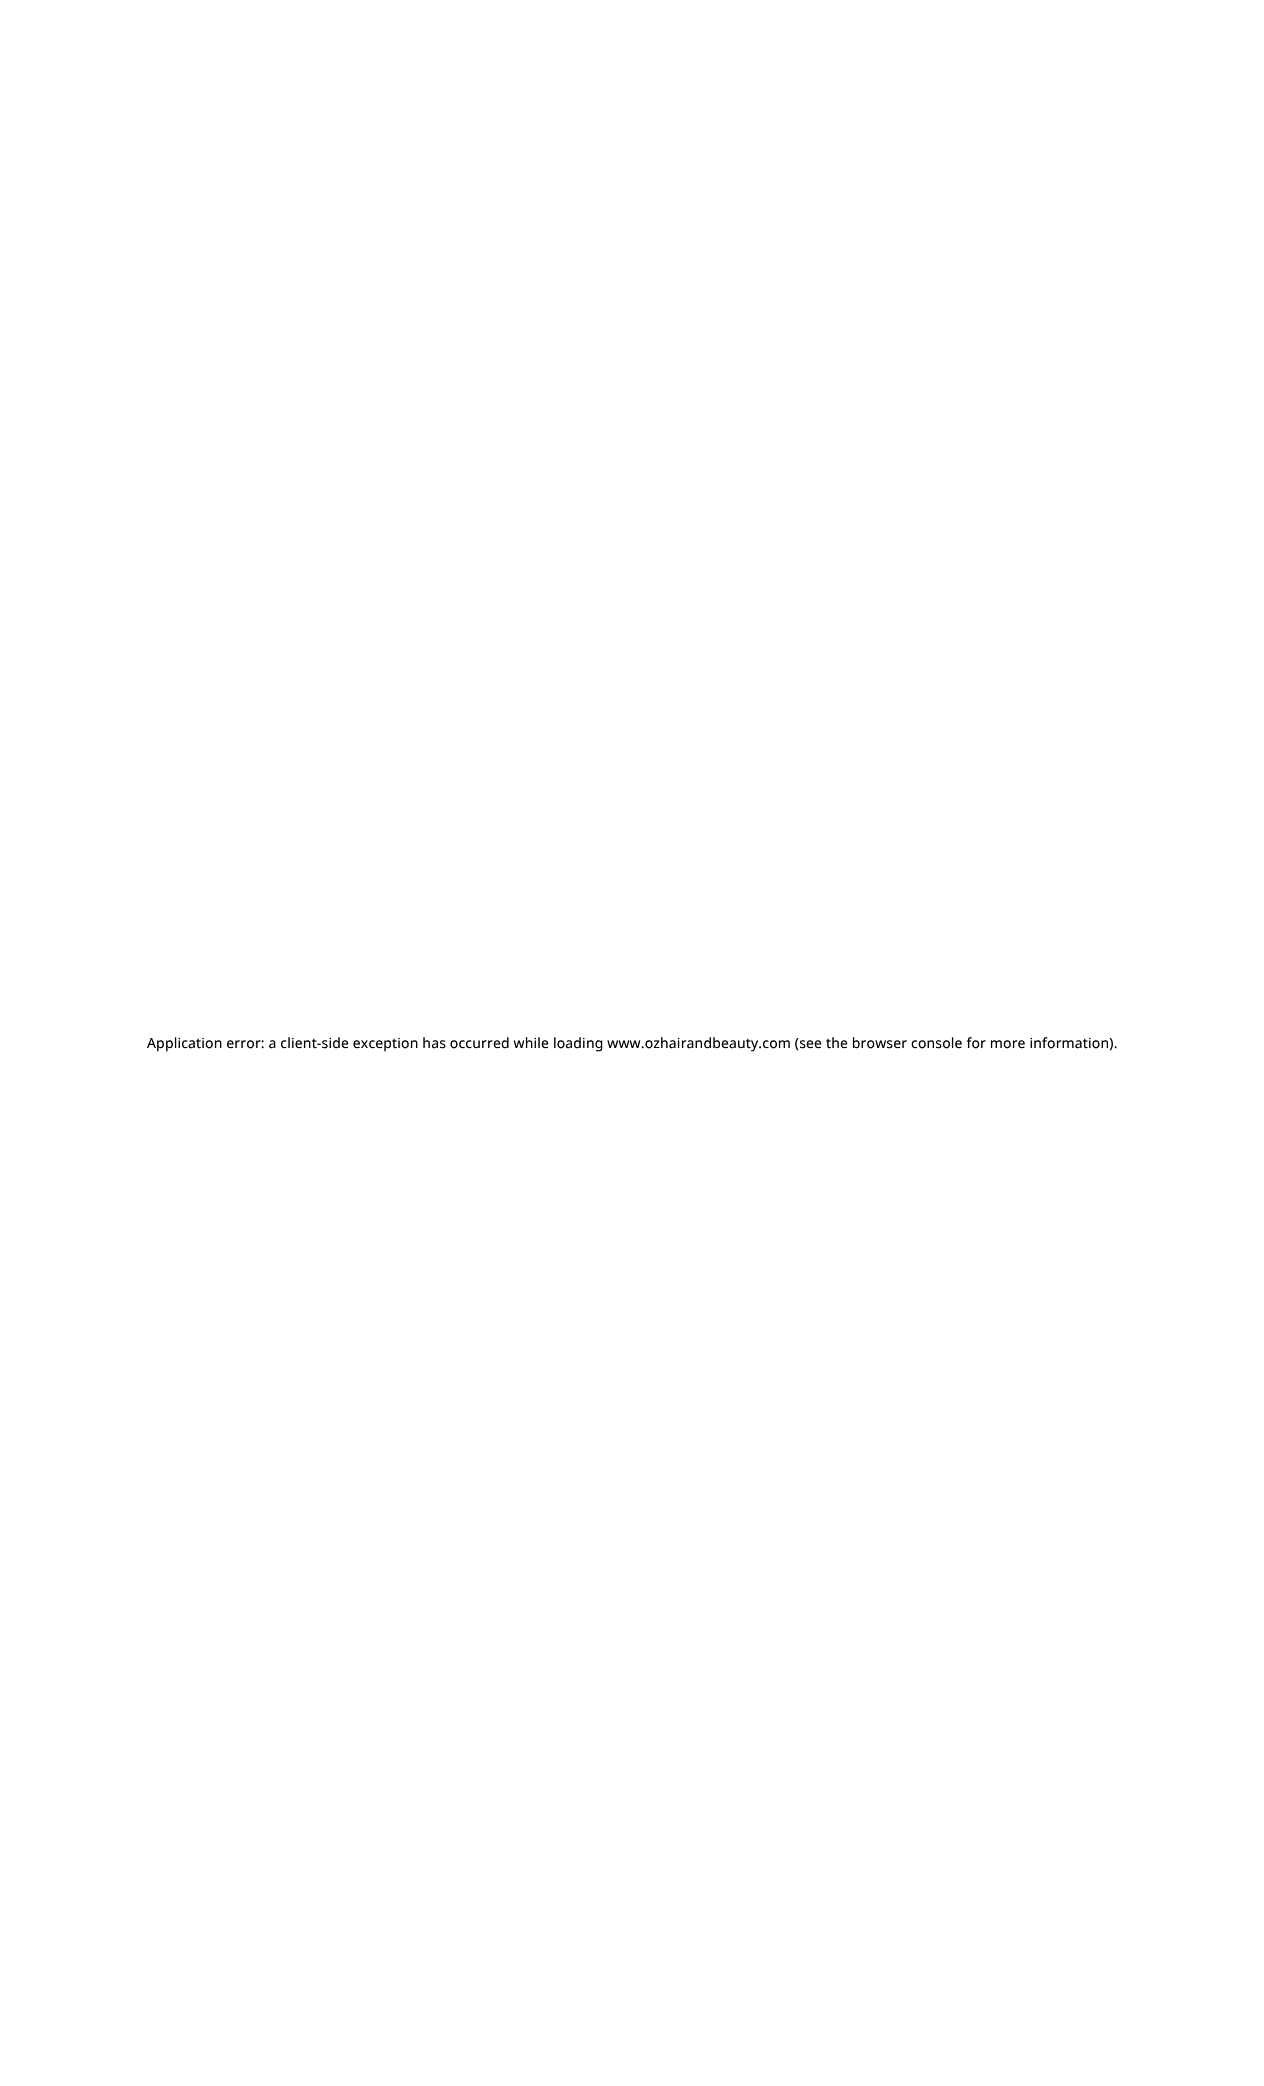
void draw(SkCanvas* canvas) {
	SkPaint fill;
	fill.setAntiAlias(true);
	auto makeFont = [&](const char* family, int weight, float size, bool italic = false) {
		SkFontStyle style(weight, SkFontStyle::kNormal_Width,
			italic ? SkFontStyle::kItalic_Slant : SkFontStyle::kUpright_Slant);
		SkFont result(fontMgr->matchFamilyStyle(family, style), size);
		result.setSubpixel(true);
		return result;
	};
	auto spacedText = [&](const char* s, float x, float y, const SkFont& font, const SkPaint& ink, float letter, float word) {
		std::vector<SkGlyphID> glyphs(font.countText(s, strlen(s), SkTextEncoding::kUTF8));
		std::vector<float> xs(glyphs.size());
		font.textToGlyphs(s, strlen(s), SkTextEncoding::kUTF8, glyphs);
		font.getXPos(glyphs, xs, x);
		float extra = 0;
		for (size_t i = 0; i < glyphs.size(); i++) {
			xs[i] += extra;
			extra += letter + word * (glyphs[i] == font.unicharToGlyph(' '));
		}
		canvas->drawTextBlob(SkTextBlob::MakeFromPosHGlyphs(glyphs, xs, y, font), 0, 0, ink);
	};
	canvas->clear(0xFFFFFFFF);
	auto font1 = makeFont("Noto Sans", 400, 14);
	fill.setColor(0xFF000000);
	spacedText("Application error: a client-side exception has occurred while loading www.ozhairandbeauty.com (see the browser console for more information).", 147, 1048, font1, fill, 0.16f, 0);
}
